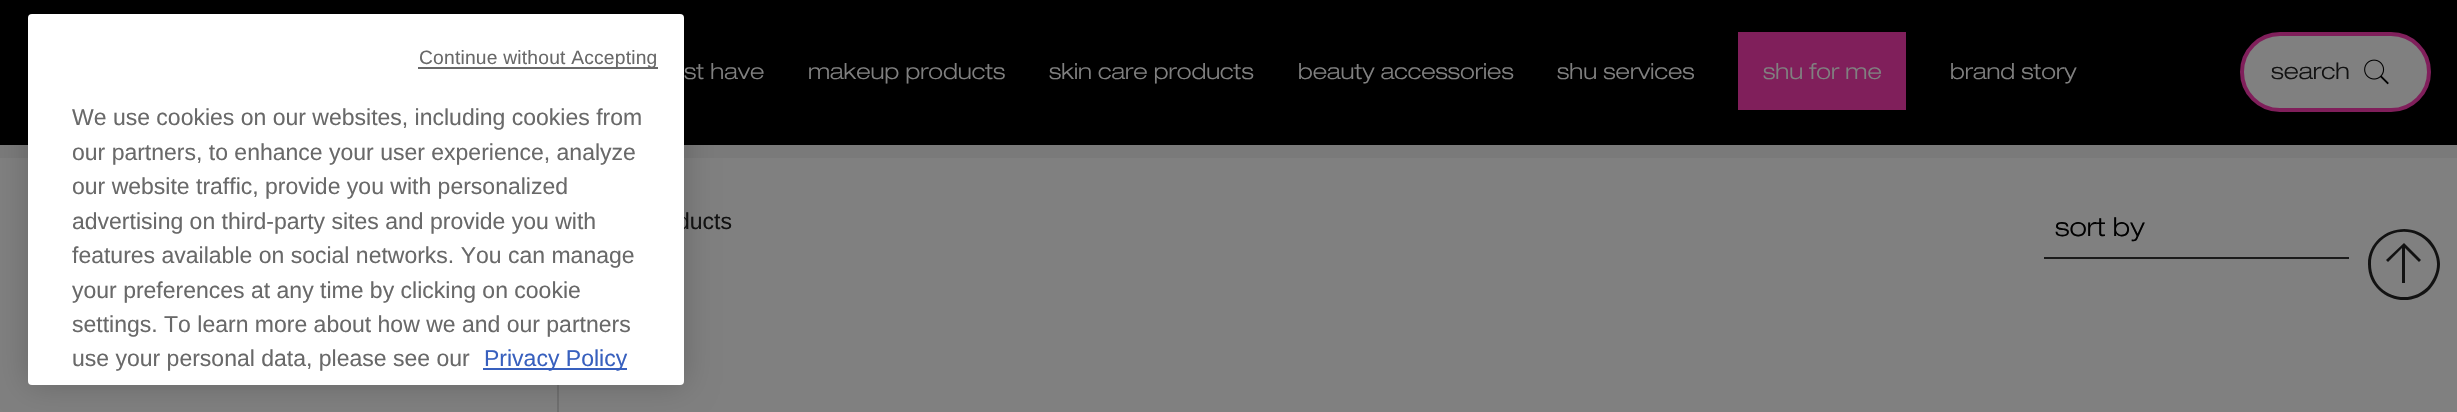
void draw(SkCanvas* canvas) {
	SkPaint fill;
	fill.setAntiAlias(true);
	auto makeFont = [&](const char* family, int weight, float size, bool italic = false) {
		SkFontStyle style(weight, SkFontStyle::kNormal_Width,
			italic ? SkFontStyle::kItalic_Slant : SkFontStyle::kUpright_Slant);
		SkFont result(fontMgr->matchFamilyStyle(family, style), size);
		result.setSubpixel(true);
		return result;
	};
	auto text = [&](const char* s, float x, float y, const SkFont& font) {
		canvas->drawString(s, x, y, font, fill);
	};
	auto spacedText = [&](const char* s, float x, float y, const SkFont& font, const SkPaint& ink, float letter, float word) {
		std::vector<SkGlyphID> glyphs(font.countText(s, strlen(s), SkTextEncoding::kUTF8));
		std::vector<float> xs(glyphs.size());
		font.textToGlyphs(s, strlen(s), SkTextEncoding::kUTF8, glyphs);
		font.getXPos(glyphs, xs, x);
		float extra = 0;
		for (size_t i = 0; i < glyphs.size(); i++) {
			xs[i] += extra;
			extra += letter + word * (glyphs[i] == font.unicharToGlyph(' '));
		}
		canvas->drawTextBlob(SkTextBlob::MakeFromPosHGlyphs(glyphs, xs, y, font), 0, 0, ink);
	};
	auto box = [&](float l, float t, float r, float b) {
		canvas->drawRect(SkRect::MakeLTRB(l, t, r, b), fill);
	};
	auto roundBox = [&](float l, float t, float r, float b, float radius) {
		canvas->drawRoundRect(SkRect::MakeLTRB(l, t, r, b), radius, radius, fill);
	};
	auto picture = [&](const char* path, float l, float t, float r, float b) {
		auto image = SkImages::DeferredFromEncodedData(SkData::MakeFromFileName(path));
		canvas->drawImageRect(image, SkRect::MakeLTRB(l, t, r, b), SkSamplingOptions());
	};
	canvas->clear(0xFF808080);
	fill.setColor(0xFF000000);
	box(0, 0, 2457, 145);
	fill.setColor(0xFF7A7A7A);
	box(0, 145, 2457, 158);
	fill.setColor(0xFF6F6F6F);
	box(557, 385, 559, 412);
	fill.setColor(0x33000000);
	fill.setMaskFilter(SkMaskFilter::MakeBlur(kNormal_SkBlurStyle, 16));
	canvas->drawRoundRect(SkRect::MakeLTRB(28, 14, 684, 385), 4, 4, fill);
	fill.setMaskFilter(nullptr);
	fill.setColor(0xFF801F5B);
	box(1738, 32, 1906, 110);
	fill.setColor(0xFF808080);
	canvas->drawRoundRect(SkRect::MakeLTRB(2242, 34, 2429, 110), 38, 38, fill);
	fill.setStyle(SkPaint::kStroke_Style);
	fill.setStrokeWidth(4);
	fill.setColor(0xFF801F5B);
	canvas->drawRoundRect(SkRect::MakeLTRB(2242, 34, 2429, 110), 38, 38, fill);
	picture("image0.png", 2364, 59, 2389, 85);
	fill.setStyle(SkPaint::kFill_Style);
	fill.setColor(0xFF1A1A1A);
	box(2044, 257, 2349, 259);
	fill.setColor(0xFF121212);
	canvas->drawPath(SkPathBuilder().moveTo(2440, 264).cubicTo(2440, 256, 2436, 247, 2430, 240).cubicTo(2408, 217, 2368, 232, 2368, 264).cubicTo(2368, 297, 2408, 312, 2430, 289).cubicTo(2436, 282, 2440, 273, 2440, 264).close().moveTo(2371, 264).cubicTo(2371, 233, 2411, 220, 2430, 245).cubicTo(2434, 250, 2437, 257, 2437, 264).cubicTo(2437, 272, 2434, 278, 2430, 284).cubicTo(2411, 309, 2371, 296, 2371, 264).close().moveTo(2419, 262).lineTo(2421, 260).lineTo(2404, 243).lineTo(2386, 260).lineTo(2388, 262).lineTo(2402, 248).lineTo(2402, 283).lineTo(2405, 283).lineTo(2405, 248).close().detach(), fill);
	auto font1 = makeFont("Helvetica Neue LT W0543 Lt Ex", 300, 22.1f);
	fill.setColor(0xFF808080);
	text("st have", 684, 79, font1);
	text("makeup products", 808, 79, font1);
	text("skin care products", 1049, 79, font1);
	text("beauty accessories", 1298, 79, font1);
	text("shu services", 1557, 79, font1);
	text("shu for me", 1763, 79, font1);
	text("brand story", 1950, 79, font1);
	auto font2 = makeFont("Helvetica Neue LT W0543 Lt Ex", 300, 23);
	fill.setColor(0xFF121212);
	text("search", 2271, 79, font2);
	auto font3 = makeFont("Liberation Sans", 400, 23);
	text("ducts", 677, 229, font3);
	fill.setColor(0xFFFFFFFF);
	roundBox(28, 14, 684, 385, 4);
	fill.setColor(0xFF696969);
	box(418, 67, 658, 69);
	auto font4 = makeFont("Liberation Sans", 400, 19.25f);
	spacedText("Continue without Accepting", 419, 64, font4, fill, 0.2f, 0);
	fill.setColor(0xFF3860BE);
	box(483, 368, 627, 370);
	text("Privacy Policy", 484, 366, font3);
	fill.setColor(0xFF696969);
	text("use your personal data, please see our", 72, 366, font3);
	text("settings. To learn more about how we and our partners", 72, 332, font3);
	text("your preferences at any time by clicking on cookie", 72, 298, font3);
	text("features available on social networks. You can manage", 72, 263, font3);
	text("advertising on third-party sites and provide you with", 72, 229, font3);
	text("our website traffic, provide you with personalized", 72, 194, font3);
	text("our partners, to enhance your user experience, analyze", 72, 160, font3);
	text("We use cookies on our websites, including cookies from", 72, 125, font3);
	auto font5 = makeFont("Helvetica Neue LT W0543 Lt Ex", 300, 26);
	fill.setColor(0xFF000000);
	text("sort by", 2055, 236, font5);
}
